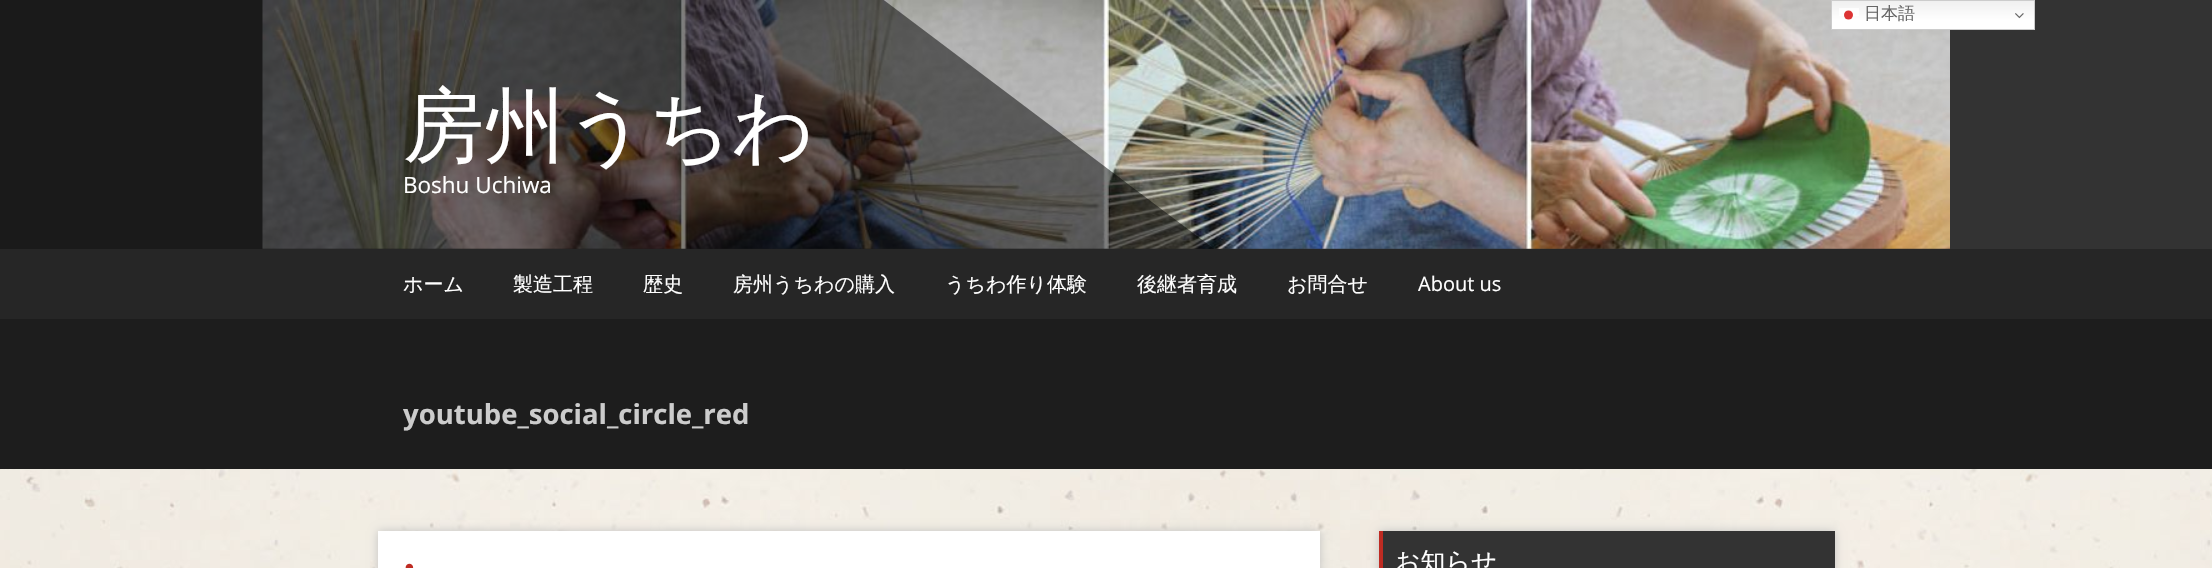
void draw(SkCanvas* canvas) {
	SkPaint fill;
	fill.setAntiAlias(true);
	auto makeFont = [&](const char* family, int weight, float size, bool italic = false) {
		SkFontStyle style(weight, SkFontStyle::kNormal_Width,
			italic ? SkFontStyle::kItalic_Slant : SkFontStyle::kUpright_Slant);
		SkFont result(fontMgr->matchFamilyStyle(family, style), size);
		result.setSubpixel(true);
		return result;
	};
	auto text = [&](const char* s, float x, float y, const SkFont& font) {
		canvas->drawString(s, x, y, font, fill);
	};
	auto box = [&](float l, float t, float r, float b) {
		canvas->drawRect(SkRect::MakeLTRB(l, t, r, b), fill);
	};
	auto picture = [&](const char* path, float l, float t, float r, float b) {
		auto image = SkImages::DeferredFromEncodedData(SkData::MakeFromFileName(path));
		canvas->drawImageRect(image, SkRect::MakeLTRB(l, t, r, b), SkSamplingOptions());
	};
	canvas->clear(0xFFFFFFFF);
	picture("image0.png", 0, 469, 2212, 568);
	fill.setColor(0xFF333333);
	box(0, 0, 2212, 249);
	picture("image2.png", 262, 0, 1950, 249);
	{
		const SkColor colors[] = {0xFFEFEFEF, 0xFFFFFFFF};
		const float stops[] = {0, 0.7f};
		const SkPoint ends[] = {{1933, 0}, {1933, 30}};
		fill.setShader(SkGradientShader::MakeLinear(ends, colors, stops, 2, SkTileMode::kClamp));
		fill.setAlpha(255);
	}
	box(1832, 1, 2034, 29);
	fill.setStyle(SkPaint::kStroke_Style);
	fill.setStrokeWidth(1);
	fill.setShader(nullptr);
	fill.setColor(0xFFCCCCCC);
	canvas->drawRect(SkRect::MakeLTRB(1831.5f, 0.5f, 2034.5f, 29.5f), fill);
	fill.setStyle(SkPaint::kFill_Style);
	fill.setColor(0xCCFFFFFF);
	box(1839, 8, 1859, 16);
	fill.setColor(0xFFDC3333);
	canvas->drawCircle(1848.5f, 15, 4.5f, fill);
	picture("image1.png", 2015, 13, 2024, 19);
	canvas->save();
	canvas->clipRect(SkRect::MakeLTRB(0, 0, 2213, 249));
	fill.setColor(0x80000000);
	canvas->drawPath(SkPathBuilder().moveTo(-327, -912).lineTo(1440, 419).lineTo(687, 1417).lineTo(-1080, 86).close().detach(), fill);
	canvas->restore();
	fill.setColor(0xFF262626);
	box(0, 249, 2212, 319);
	fill.setColor(0xFF1D1D1D);
	box(0, 319, 2212, 469);
	fill.setColor(0xFFC2C2C2);
	fill.setMaskFilter(SkMaskFilter::MakeBlur(kNormal_SkBlurStyle, 4.5f));
	canvas->drawRect(SkRect::MakeLTRB(378, 531, 1320, 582), fill);
	fill.setMaskFilter(nullptr);
	fill.setColor(0xFFFFFFFF);
	box(378, 531, 1320, 568);
	picture("image3.png", 405, 563, 414, 568);
	fill.setColor(0xFFC2C2C2);
	fill.setMaskFilter(SkMaskFilter::MakeBlur(kNormal_SkBlurStyle, 4.5f));
	canvas->drawRect(SkRect::MakeLTRB(1379, 531, 1835, 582), fill);
	fill.setMaskFilter(nullptr);
	fill.setColor(0xFF333333);
	box(1383, 531, 1835, 568);
	fill.setColor(0xFFBE2B22);
	box(1379, 531, 1383, 568);
	auto font1 = makeFont("WenQuanYi Zen Hei", 500, 17);
	fill.setColor(0xFF666666);
	text("日本語", 1864, 19, font1);
	auto font2 = makeFont("WenQuanYi Zen Hei", 500, 81.25f);
	fill.setColor(0xFFFFFFFF);
	text("房州うちわ", 403, 154, font2);
	auto font3 = makeFont("Open Sans", 400, 22.5f);
	text("Boshu Uchiwa", 403, 193, font3);
	auto font4 = makeFont("WenQuanYi Zen Hei", 500, 20);
	text("ホーム", 403, 291, font4);
	text("製造工程", 513, 291, font4);
	text("歴史", 643, 291, font4);
	text("房州うちわの購入", 733, 291, font4);
	text("うちわ作り体験", 945, 291, font4);
	text("後継者育成", 1137, 291, font4);
	text("お問合せ", 1287, 291, font4);
	auto font5 = makeFont("Open Sans", 400, 20);
	text("About us", 1418, 291, font5);
	auto font6 = makeFont("Open Sans", 700, 27.5f);
	fill.setColor(0xFFCCCCCC);
	text("youtube_social_circle_red", 403, 424, font6);
	auto font7 = makeFont("WenQuanYi Zen Hei", 500, 25);
	fill.setColor(0xFFFFFFFF);
	text("お知らせ", 1395, 570, font7);
}
